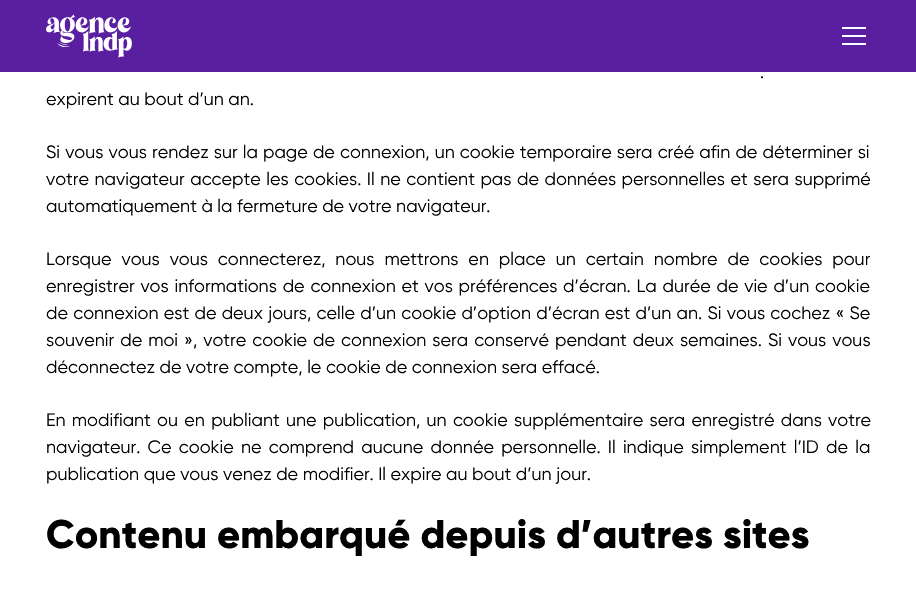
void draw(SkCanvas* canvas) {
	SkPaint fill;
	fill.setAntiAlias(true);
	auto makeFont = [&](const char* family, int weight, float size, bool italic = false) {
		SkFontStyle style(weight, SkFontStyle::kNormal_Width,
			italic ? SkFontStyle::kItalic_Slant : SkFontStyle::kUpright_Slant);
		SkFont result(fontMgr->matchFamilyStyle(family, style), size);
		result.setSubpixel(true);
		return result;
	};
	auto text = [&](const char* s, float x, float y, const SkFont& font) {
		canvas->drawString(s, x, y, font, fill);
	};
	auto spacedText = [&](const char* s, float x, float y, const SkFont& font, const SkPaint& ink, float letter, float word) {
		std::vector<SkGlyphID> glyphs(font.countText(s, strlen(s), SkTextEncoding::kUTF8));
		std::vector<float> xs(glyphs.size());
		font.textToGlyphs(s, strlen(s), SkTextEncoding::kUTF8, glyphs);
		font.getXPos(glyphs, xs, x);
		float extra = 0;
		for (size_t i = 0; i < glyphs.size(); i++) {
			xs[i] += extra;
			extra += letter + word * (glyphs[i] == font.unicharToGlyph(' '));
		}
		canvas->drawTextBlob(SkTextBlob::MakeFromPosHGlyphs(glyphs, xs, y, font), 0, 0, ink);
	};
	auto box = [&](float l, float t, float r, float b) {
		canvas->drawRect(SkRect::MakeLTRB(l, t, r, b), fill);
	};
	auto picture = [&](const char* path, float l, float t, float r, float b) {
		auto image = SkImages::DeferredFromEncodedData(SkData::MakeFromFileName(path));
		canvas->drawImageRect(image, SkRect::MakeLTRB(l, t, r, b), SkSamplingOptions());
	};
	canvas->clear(0xFFFFFFFF);
	fill.setColor(0xFF5A1FA0);
	box(0, 0, 916, 72);
	picture("image0.png", 46, 14, 132, 58);
	fill.setColor(0xFFFFFFFF);
	box(842, 27, 866, 29);
	box(842, 35, 866, 37);
	box(842, 43, 866, 45);
	auto font1 = makeFont("Gilroy", 400, 18);
	fill.setColor(0xFF000000);
	spacedText(".", 760, 78, font1, fill, 0, 1);
	text("expirent au bout d’un an.", 46, 105, font1);
	spacedText("Si vous vous rendez sur la page de connexion, un cookie temporaire sera créé afin de déterminer si", 46, 158, font1, fill, 0, 0.6f);
	spacedText("votre navigateur accepte les cookies. Il ne contient pas de données personnelles et sera supprimé", 46, 185, font1, fill, 0, 1);
	text("automatiquement à la fermeture de votre navigateur.", 46, 212, font1);
	spacedText("Lorsque vous vous connecterez, nous mettrons en place un certain nombre de cookies pour", 46, 265, font1, fill, 0, 5.4f);
	spacedText("enregistrer vos informations de connexion et vos préférences d’écran. La durée de vie d’un cookie", 46, 292, font1, fill, 0, 1.3f);
	spacedText("de connexion est de deux jours, celle d’un cookie d’option d’écran est d’un an. Si vous cochez « Se", 46, 319, font1, fill, 0, 0.75f);
	spacedText("souvenir de moi », votre cookie de connexion sera conservé pendant deux semaines. Si vous vous", 46, 346, font1, fill, 0, 1.5f);
	text("déconnectez de votre compte, le cookie de connexion sera effacé.", 46, 373, font1);
	spacedText("En modifiant ou en publiant une publication, un cookie supplémentaire sera enregistré dans votre", 46, 426, font1, fill, 0, 1.75f);
	spacedText("navigateur. Ce cookie ne comprend aucune donnée personnelle. Il indique simplement l’ID de la", 46, 453, font1, fill, 0, 2.75f);
	text("publication que vous venez de modifier. Il expire au bout d’un jour.", 46, 480, font1);
	auto font2 = makeFont("Gilroy", 800, 40);
	text("Contenu embarqué depuis d’autres sites", 46, 548, font2);
}
